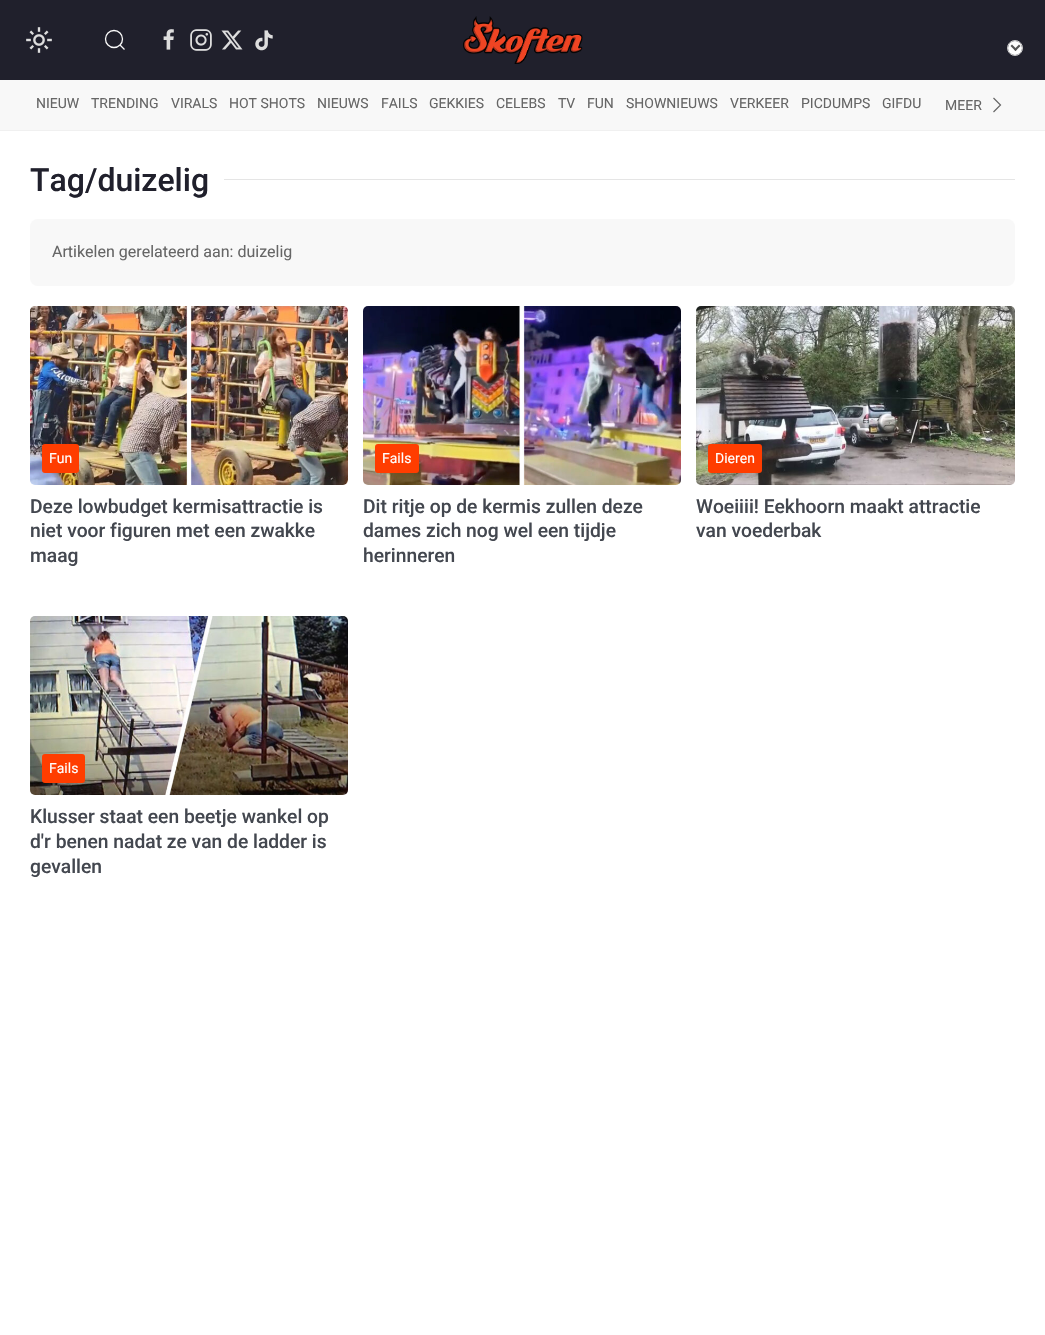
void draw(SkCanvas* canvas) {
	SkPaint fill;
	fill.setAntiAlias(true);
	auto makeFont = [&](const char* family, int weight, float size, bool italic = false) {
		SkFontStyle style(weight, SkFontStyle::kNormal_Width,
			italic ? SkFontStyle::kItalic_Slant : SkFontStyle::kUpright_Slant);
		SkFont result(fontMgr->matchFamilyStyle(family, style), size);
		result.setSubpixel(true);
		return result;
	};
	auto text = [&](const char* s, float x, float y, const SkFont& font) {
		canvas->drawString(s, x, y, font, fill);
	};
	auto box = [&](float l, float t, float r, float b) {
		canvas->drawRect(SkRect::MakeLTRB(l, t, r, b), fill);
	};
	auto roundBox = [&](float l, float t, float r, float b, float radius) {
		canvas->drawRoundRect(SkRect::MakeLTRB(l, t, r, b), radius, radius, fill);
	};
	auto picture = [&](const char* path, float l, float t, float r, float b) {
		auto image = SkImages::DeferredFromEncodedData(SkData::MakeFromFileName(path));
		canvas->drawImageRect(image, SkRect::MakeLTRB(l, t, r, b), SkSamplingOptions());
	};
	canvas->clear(0xFFFFFFFF);
	fill.setColor(0xFF20202C);
	box(0, 0, 1045, 80);
	picture("image0.png", 26, 27, 52, 53);
	fill.setStyle(SkPaint::kStroke_Style);
	fill.setStrokeWidth(1.3f);
	fill.setColor(0xFFFAFAFA);
	canvas->drawCircle(114, 39, 8.5f, fill);
	canvas->drawPath(SkPathBuilder().moveTo(120, 45).lineTo(124.5f, 49.5f).close().detach(), fill);
	picture("image1.png", 163, 29, 174, 50);
	picture("image2.png", 190, 29, 212, 51);
	picture("image3.png", 221, 30, 243, 50);
	picture("image4.png", 255, 30, 273, 51);
	picture("image5.png", 463, 16, 583, 64);
	fill.setStrokeWidth(1);
	fill.setColor(0xFFCCCCCC);
	canvas->drawCircle(1015, 48, 7.5f, fill);
	fill.setStyle(SkPaint::kFill_Style);
	fill.setColor(0xFFFFFFFF);
	canvas->drawCircle(1015, 48, 7, fill);
	fill.setColor(0xFF555555);
	canvas->drawPath(SkPathBuilder().moveTo(1019, 44.5f).lineTo(1020.5f, 46).lineTo(1015.5f, 51).lineTo(1014, 49.5f).close().detach(), fill);
	canvas->drawPath(SkPathBuilder().moveTo(1012, 44.5f).lineTo(1017, 49.5f).lineTo(1015.5f, 51).lineTo(1010.5f, 46).close().detach(), fill);
	fill.setColor(0xFFF8F8F8);
	box(0, 80, 1045, 130);
	fill.setColor(0xFFF0F0F0);
	box(0, 130, 1045, 131);
	fill.setStyle(SkPaint::kStroke_Style);
	fill.setStrokeWidth(1.2f);
	fill.setColor(0xFF666666);
	canvas->drawPath(SkPathBuilder().moveTo(993.5f, 98).lineTo(1000.5f, 105).lineTo(993.5f, 112).detach(), fill);
	fill.setStyle(SkPaint::kFill_Style);
	fill.setColor(0xFFE5E5E5);
	box(224, 179, 1015, 180);
	fill.setColor(0xFFF8F8F8);
	roundBox(30, 219, 1015, 286, 8);
	picture("image6.png", 30, 306, 348, 485);
	fill.setColor(0xFFFF3D00);
	roundBox(42, 444, 79, 473, 3);
	picture("image7.png", 363, 306, 681, 485);
	roundBox(375, 444, 419, 473, 3);
	picture("image8.png", 696, 306, 1015, 485);
	roundBox(708, 444, 762, 473, 3);
	picture("image9.png", 30, 616, 348, 795);
	roundBox(42, 754, 85, 783, 3);
	auto font1 = makeFont("Roboto", 400, 14);
	fill.setColor(0xFF666666);
	text("NIEUW", 36, 108, font1);
	text("TRENDING", 91, 108, font1);
	text("VIRALS", 171, 108, font1);
	text("HOT SHOTS", 229, 108, font1);
	text("NIEUWS", 317, 108, font1);
	text("FAILS", 381, 108, font1);
	text("GEKKIES", 429, 108, font1);
	text("CELEBS", 496, 108, font1);
	text("TV", 558, 108, font1);
	text("FUN", 587, 108, font1);
	text("SHOWNIEUWS", 626, 108, font1);
	text("VERKEER", 730, 108, font1);
	text("PICDUMPS", 801, 108, font1);
	text("GIFDU", 882, 108, font1);
	text("MEER", 945, 110, font1);
	auto font2 = makeFont("Roboto", 500, 32);
	fill.setColor(0xFF20202C);
	text("Tag/duizelig", 30, 191, font2);
	auto font3 = makeFont("Roboto", 400, 16);
	fill.setColor(0xFF666666);
	text("Artikelen gerelateerd aan: duizelig", 52, 257, font3);
	fill.setColor(0xFFFFFFFF);
	text("Fun", 49, 463, font1);
	auto font4 = makeFont("Roboto", 500, 19.25f);
	fill.setColor(0xFF43474F);
	text("Deze lowbudget kermisattractie is", 30, 513, font4);
	text("niet voor figuren met een zwakke", 30, 537, font4);
	text("maag", 30, 562, font4);
	fill.setColor(0xFFFFFFFF);
	text("Fails", 382, 463, font1);
	fill.setColor(0xFF43474F);
	text("Dit ritje op de kermis zullen deze", 363, 513, font4);
	text("dames zich nog wel een tijdje", 363, 537, font4);
	text("herinneren", 363, 562, font4);
	fill.setColor(0xFFFFFFFF);
	text("Dieren", 715, 463, font1);
	fill.setColor(0xFF43474F);
	text("Woeiiii! Eekhoorn maakt attractie", 696, 513, font4);
	text("van voederbak", 696, 537, font4);
	fill.setColor(0xFFFFFFFF);
	text("Fails", 49, 773, font1);
	fill.setColor(0xFF43474F);
	text("Klusser staat een beetje wankel op", 30, 823, font4);
	text("d'r benen nadat ze van de ladder is", 30, 848, font4);
	text("gevallen", 30, 873, font4);
}
